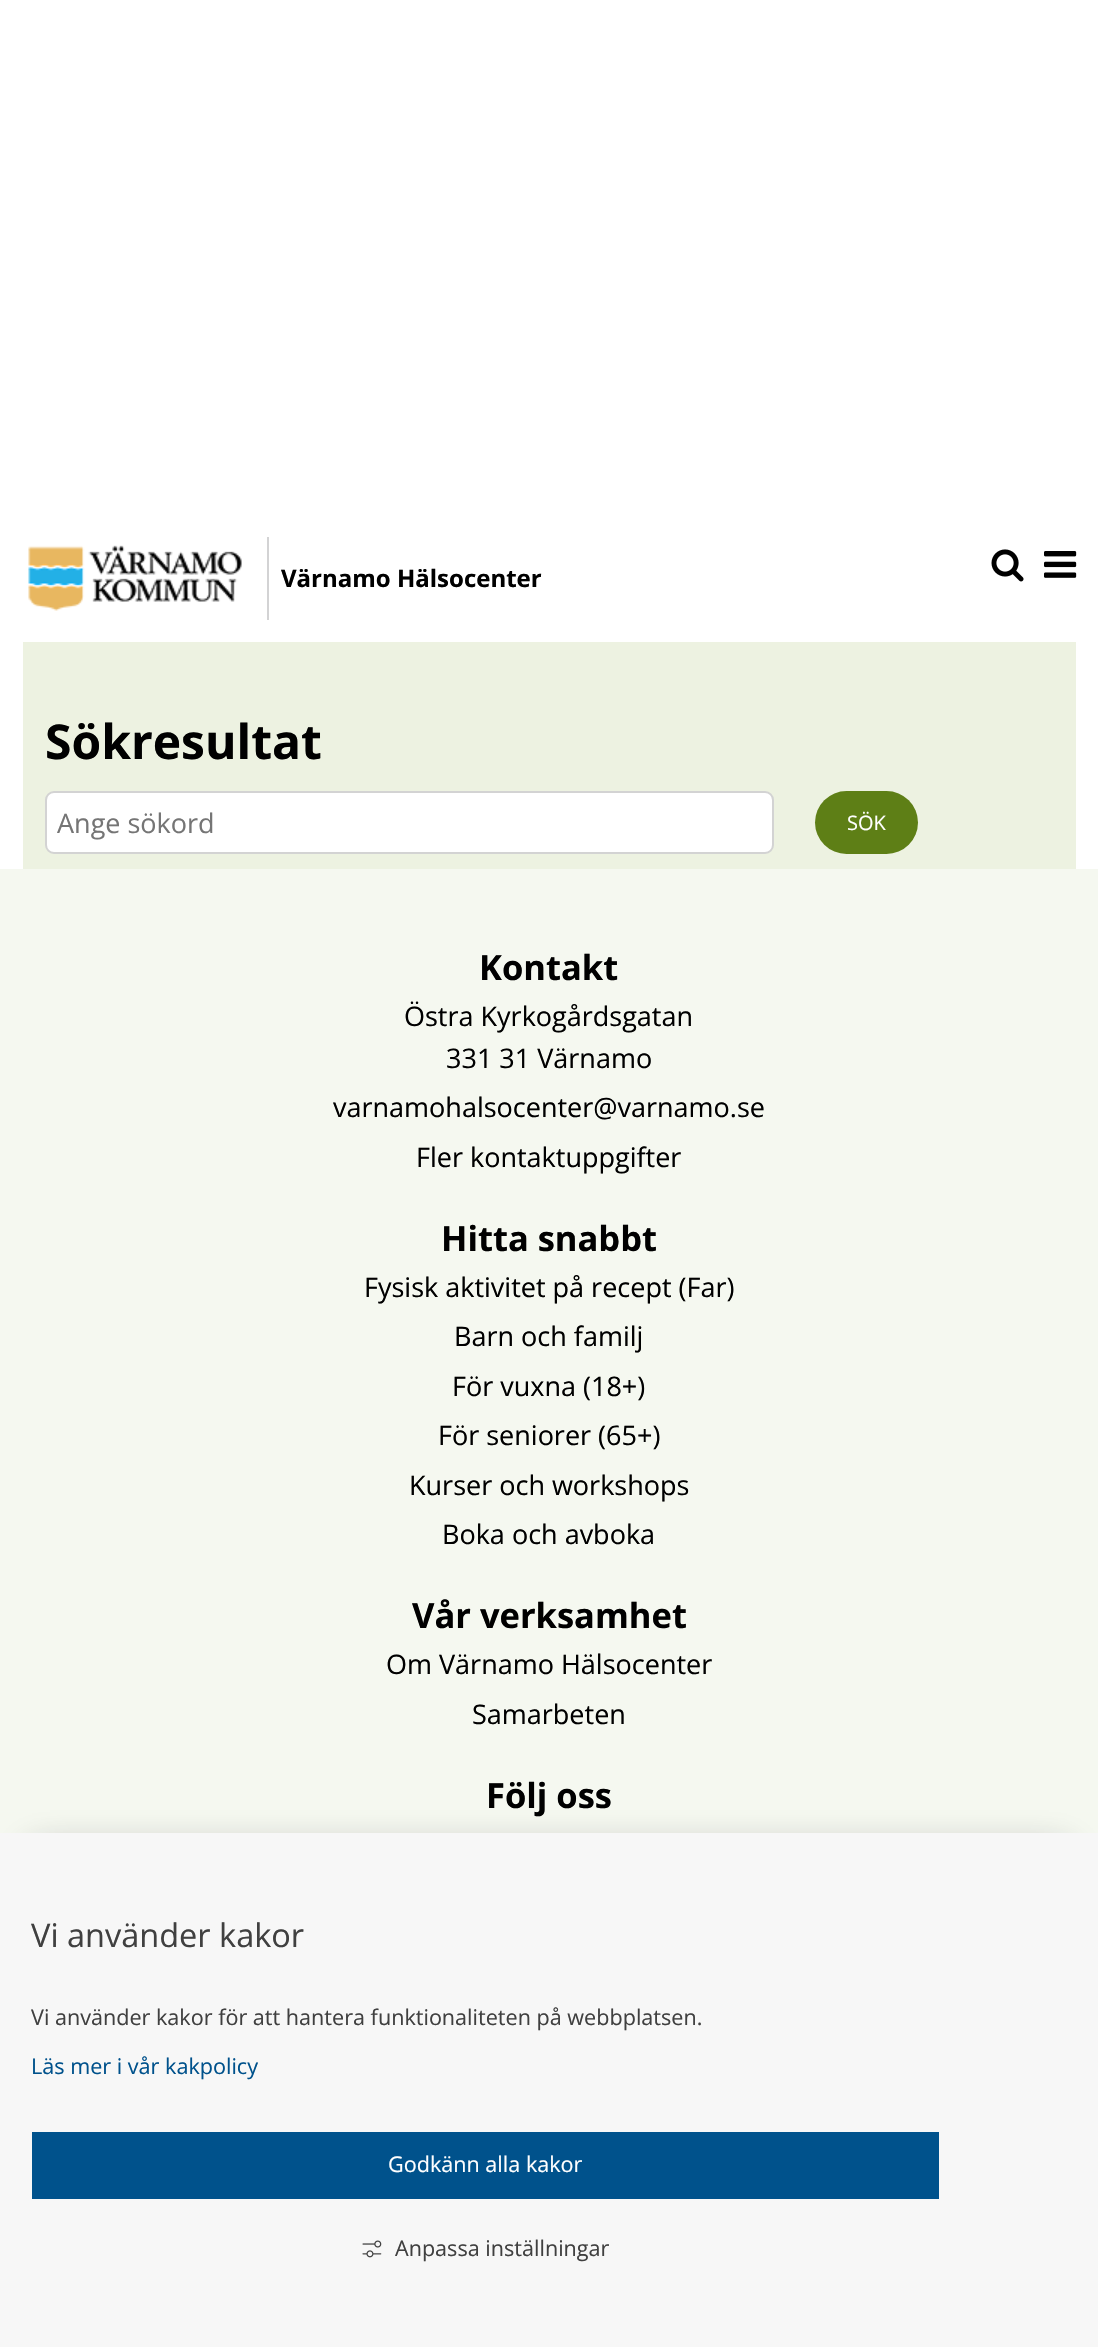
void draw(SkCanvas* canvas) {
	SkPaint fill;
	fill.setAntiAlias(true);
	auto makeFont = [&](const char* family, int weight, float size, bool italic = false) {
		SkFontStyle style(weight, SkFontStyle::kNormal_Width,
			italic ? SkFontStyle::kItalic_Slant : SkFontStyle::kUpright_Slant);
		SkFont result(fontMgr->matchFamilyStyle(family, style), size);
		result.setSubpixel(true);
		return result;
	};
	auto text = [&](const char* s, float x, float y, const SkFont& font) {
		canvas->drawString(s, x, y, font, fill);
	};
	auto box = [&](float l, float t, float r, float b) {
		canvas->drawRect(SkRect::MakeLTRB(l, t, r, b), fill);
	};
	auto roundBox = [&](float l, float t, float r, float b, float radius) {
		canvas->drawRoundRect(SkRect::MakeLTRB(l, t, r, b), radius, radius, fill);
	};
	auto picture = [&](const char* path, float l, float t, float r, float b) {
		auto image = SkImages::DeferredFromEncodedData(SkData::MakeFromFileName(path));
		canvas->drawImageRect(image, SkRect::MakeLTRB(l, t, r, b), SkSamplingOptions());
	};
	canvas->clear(0xFFFFFFFF);
	fill.setColor(0xFFD3D3D4);
	box(267, 537, 269, 620);
	picture("image0.png", 28, 545, 242, 611);
	picture("image1.png", 991, 549, 1024, 582);
	picture("image2.png", 1044, 551, 1077, 578);
	fill.setColor(0xFFEDF2E1);
	box(23, 642, 1076, 869);
	fill.setColor(0xFFFFFFFF);
	canvas->drawRoundRect(SkRect::MakeLTRB(46, 792, 773, 853), 8, 8, fill);
	fill.setStyle(SkPaint::kStroke_Style);
	fill.setStrokeWidth(2);
	fill.setColor(0xFFD3D3D3);
	canvas->drawRoundRect(SkRect::MakeLTRB(46, 792, 773, 853), 8, 8, fill);
	fill.setStyle(SkPaint::kFill_Style);
	fill.setColor(0xFF5E7F16);
	roundBox(815, 791, 918, 854, 31.5f);
	fill.setColor(0xFFF5F8F0);
	box(0, 869, 1098, 1833);
	fill.setColor(0x631B1D1D);
	fill.setMaskFilter(SkMaskFilter::MakeBlur(kNormal_SkBlurStyle, 18));
	canvas->drawRect(SkRect::MakeLTRB(32, 1851, 1067, 2303), fill);
	fill.setMaskFilter(nullptr);
	fill.setColor(0xFFF7F7F7);
	box(0, 1833, 1098, 2347);
	fill.setColor(0xFF00528C);
	box(32, 2132, 939, 2199);
	picture("image3.png", 362, 2240, 382, 2258);
	auto font1 = makeFont("Open Sans", 700, 24);
	fill.setColor(0xFF000000);
	text("Värnamo Hälsocenter", 281, 587, font1);
	auto font2 = makeFont("Open Sans", 700, 48);
	text("Sökresultat", 45, 759, font2);
	auto font3 = makeFont("Open Sans", 400, 27);
	fill.setColor(0xFF757575);
	text("Ange sökord", 57, 833, font3);
	auto font4 = makeFont("Open Sans", 400, 20);
	fill.setColor(0xFFFFFFFF);
	text("SÖK", 847, 830, font4);
	auto font5 = makeFont("Open Sans", 700, 34.5f);
	fill.setColor(0xFF000000);
	text("Kontakt", 479, 980, font5);
	text("Östra Kyrkogårdsgatan", 404, 1026, font3);
	text("331 31 Värnamo", 446, 1068, font3);
	text("varnamohalsocenter@varnamo.se", 333, 1117, font3);
	text("Fler kontaktuppgifter", 416, 1167, font3);
	text("Hitta snabbt", 441, 1251, font5);
	text("Fysisk aktivitet på recept (Far)", 364, 1297, font3);
	text("Barn och familj", 454, 1346, font3);
	text("För vuxna (18+)", 452, 1396, font3);
	text("För seniorer (65+)", 438, 1445, font3);
	text("Kurser och workshops", 409, 1495, font3);
	text("Boka och avboka", 442, 1544, font3);
	text("Vår verksamhet", 412, 1628, font5);
	text("Om Värnamo Hälsocenter", 386, 1674, font3);
	text("Samarbeten", 472, 1724, font3);
	text("Följ oss", 486, 1808, font5);
	auto font6 = makeFont("Open Sans", 400, 32.5f);
	fill.setColor(0xFF404040);
	text("Vi använder kakor", 31, 1947, font6);
	auto font7 = makeFont("Open Sans", 400, 21.6f);
	text("Vi använder kakor för att hantera funktionaliteten på webbplatsen.", 31, 2025, font7);
	fill.setColor(0xFF00528C);
	text("Läs mer i vår kakpolicy", 31, 2074, font7);
	fill.setColor(0xFFFFFFFF);
	text("Godkänn alla kakor", 388, 2172, font7);
	fill.setColor(0xFF404040);
	text("Anpassa inställningar", 395, 2256, font7);
}
